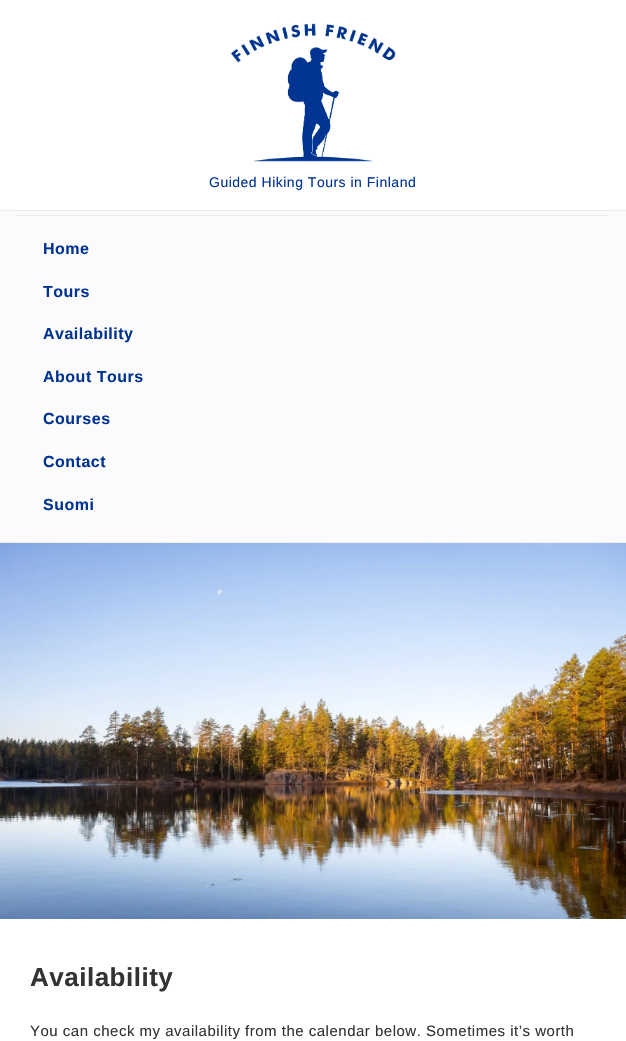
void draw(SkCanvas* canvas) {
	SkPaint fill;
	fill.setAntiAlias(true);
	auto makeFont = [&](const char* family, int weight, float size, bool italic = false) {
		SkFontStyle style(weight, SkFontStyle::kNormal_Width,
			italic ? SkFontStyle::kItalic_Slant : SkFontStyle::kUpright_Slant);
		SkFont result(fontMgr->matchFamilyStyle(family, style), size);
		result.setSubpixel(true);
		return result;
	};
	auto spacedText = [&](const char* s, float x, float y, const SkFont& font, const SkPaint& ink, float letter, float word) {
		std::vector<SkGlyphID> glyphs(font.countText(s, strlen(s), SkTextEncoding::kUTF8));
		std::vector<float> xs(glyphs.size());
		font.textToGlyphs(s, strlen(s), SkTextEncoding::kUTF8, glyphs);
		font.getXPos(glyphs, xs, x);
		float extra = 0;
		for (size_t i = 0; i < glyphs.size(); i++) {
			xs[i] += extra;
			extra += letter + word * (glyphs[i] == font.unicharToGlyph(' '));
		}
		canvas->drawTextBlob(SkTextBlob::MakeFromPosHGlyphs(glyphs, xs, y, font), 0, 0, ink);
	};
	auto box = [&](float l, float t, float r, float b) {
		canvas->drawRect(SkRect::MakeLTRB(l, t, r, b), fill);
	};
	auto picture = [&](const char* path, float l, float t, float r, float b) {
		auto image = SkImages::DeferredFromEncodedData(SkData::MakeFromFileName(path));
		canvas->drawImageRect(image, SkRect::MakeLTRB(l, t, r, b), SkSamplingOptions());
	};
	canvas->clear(0xFFFFFFFF);
	picture("image0.png", 230, 23, 396, 162);
	fill.setColor(0xFFFBFBFB);
	box(0, 211, 626, 542);
	fill.setColor(0xFFEEEEEE);
	box(0, 210, 626, 211);
	box(0, 542, 626, 543);
	box(16, 215, 610, 216);
	picture("image1.png", 0, 543, 626, 919);
	auto font1 = makeFont("Liberation Sans", 400, 14);
	fill.setColor(0xFF013492);
	spacedText("Guided Hiking Tours in Finland", 209, 187, font1, fill, 0.5f, 0);
	auto font2 = makeFont("Liberation Sans", 700, 16);
	spacedText("Home", 43, 254, font2, fill, 0.5f, 0);
	spacedText("Tours", 43, 297, font2, fill, 0.5f, 0);
	spacedText("Availability", 43, 339, font2, fill, 0.5f, 0);
	spacedText("About Tours", 43, 382, font2, fill, 0.5f, 0);
	spacedText("Courses", 43, 424, font2, fill, 0.5f, 0);
	spacedText("Contact", 43, 467, font2, fill, 0.5f, 0);
	spacedText("Suomi", 43, 510, font2, fill, 0.5f, 0);
	auto font3 = makeFont("Liberation Sans", 700, 26);
	fill.setColor(0xFF333333);
	spacedText("Availability", 30, 986, font3, fill, 0.5f, 0);
	auto font4 = makeFont("Liberation Sans", 400, 15);
	spacedText("You can check my availability from the calendar below. Sometimes it’s worth", 30, 1036, font4, fill, 0.5f, 0);
}
